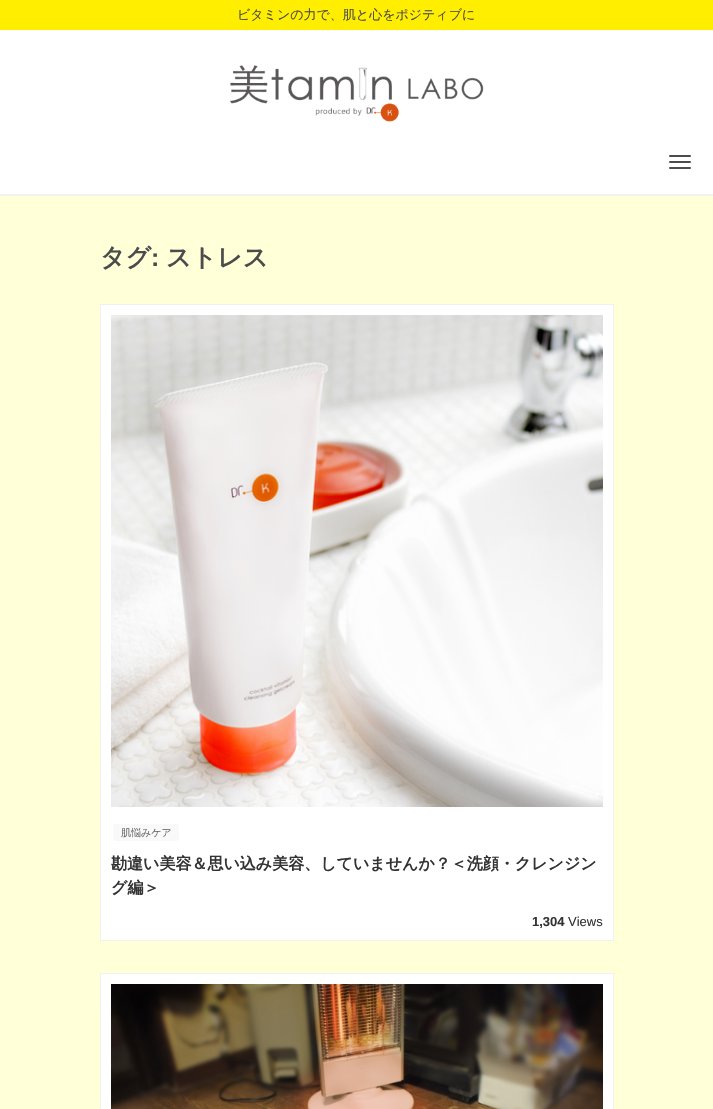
void draw(SkCanvas* canvas) {
	SkPaint fill;
	fill.setAntiAlias(true);
	auto makeFont = [&](const char* family, int weight, float size, bool italic = false) {
		SkFontStyle style(weight, SkFontStyle::kNormal_Width,
			italic ? SkFontStyle::kItalic_Slant : SkFontStyle::kUpright_Slant);
		SkFont result(fontMgr->matchFamilyStyle(family, style), size);
		result.setSubpixel(true);
		return result;
	};
	auto text = [&](const char* s, float x, float y, const SkFont& font) {
		canvas->drawString(s, x, y, font, fill);
	};
	auto box = [&](float l, float t, float r, float b) {
		canvas->drawRect(SkRect::MakeLTRB(l, t, r, b), fill);
	};
	auto roundBox = [&](float l, float t, float r, float b, float radius) {
		canvas->drawRoundRect(SkRect::MakeLTRB(l, t, r, b), radius, radius, fill);
	};
	auto picture = [&](const char* path, float l, float t, float r, float b) {
		auto image = SkImages::DeferredFromEncodedData(SkData::MakeFromFileName(path));
		canvas->drawImageRect(image, SkRect::MakeLTRB(l, t, r, b), SkSamplingOptions());
	};
	canvas->clear(0xFFFFFFD8);
	fill.setColor(0xFFFFFFFF);
	box(0, 30, 713, 194);
	fill.setColor(0xFFFFEE00);
	box(0, 0, 713, 30);
	picture("image0.png", 230, 65, 484, 122);
	fill.setColor(0xFFF1F1F1);
	box(0, 194, 713, 196);
	fill.setColor(0xFF4C4C4C);
	roundBox(669, 155, 691, 157, 1);
	roundBox(669, 161, 691, 163, 1);
	roundBox(669, 167, 691, 169, 1);
	fill.setColor(0xFFFFFFFF);
	canvas->drawRect(SkRect::MakeLTRB(100.5f, 304.5f, 613.5f, 940.5f), fill);
	fill.setStyle(SkPaint::kStroke_Style);
	fill.setStrokeWidth(1);
	fill.setColor(0xFFF1F1F1);
	canvas->drawRect(SkRect::MakeLTRB(100.5f, 304.5f, 613.5f, 940.5f), fill);
	picture("image1.png", 111, 315, 603, 807);
	fill.setStyle(SkPaint::kFill_Style);
	fill.setColor(0xFFF9F9F9);
	roundBox(113, 824, 179, 841, 3);
	fill.setColor(0xFFFFFFFF);
	canvas->drawRect(SkRect::MakeLTRB(100.5f, 973.5f, 613.5f, 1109.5f), fill);
	fill.setStyle(SkPaint::kStroke_Style);
	fill.setColor(0xFFF1F1F1);
	canvas->drawRect(SkRect::MakeLTRB(100.5f, 973.5f, 613.5f, 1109.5f), fill);
	picture("image2.png", 111, 984, 603, 1109);
	auto font1 = makeFont("WenQuanYi Zen Hei", 500, 13);
	fill.setStyle(SkPaint::kFill_Style);
	fill.setColor(0xFF4C4C4C);
	text("ビタミンの力で、肌と心をポジティブに", 237, 19, font1);
	auto font2 = makeFont("WenQuanYi Zen Hei", 700, 25);
	text("タグ", 100, 266, font2);
	auto font3 = makeFont("Liberation Sans", 700, 25);
	text(":", 151, 266, font3);
	text("ストレス", 166, 266, font2);
	auto font4 = makeFont("WenQuanYi Zen Hei", 500, 10);
	fill.setColor(0xFF666666);
	text("肌悩みケア", 121, 836, font4);
	auto font5 = makeFont("WenQuanYi Zen Hei", 700, 16);
	fill.setColor(0xFF333333);
	text("勘違い美容＆思い込み美容、していませんか？＜洗顔・クレンジン", 111, 869, font5);
	text("グ編＞", 111, 893, font5);
	auto font6 = makeFont("Liberation Sans", 700, 13);
	text("1,304", 532, 926, font6);
	auto font7 = makeFont("Liberation Sans", 400, 13);
	text("Views", 568, 926, font7);
}
